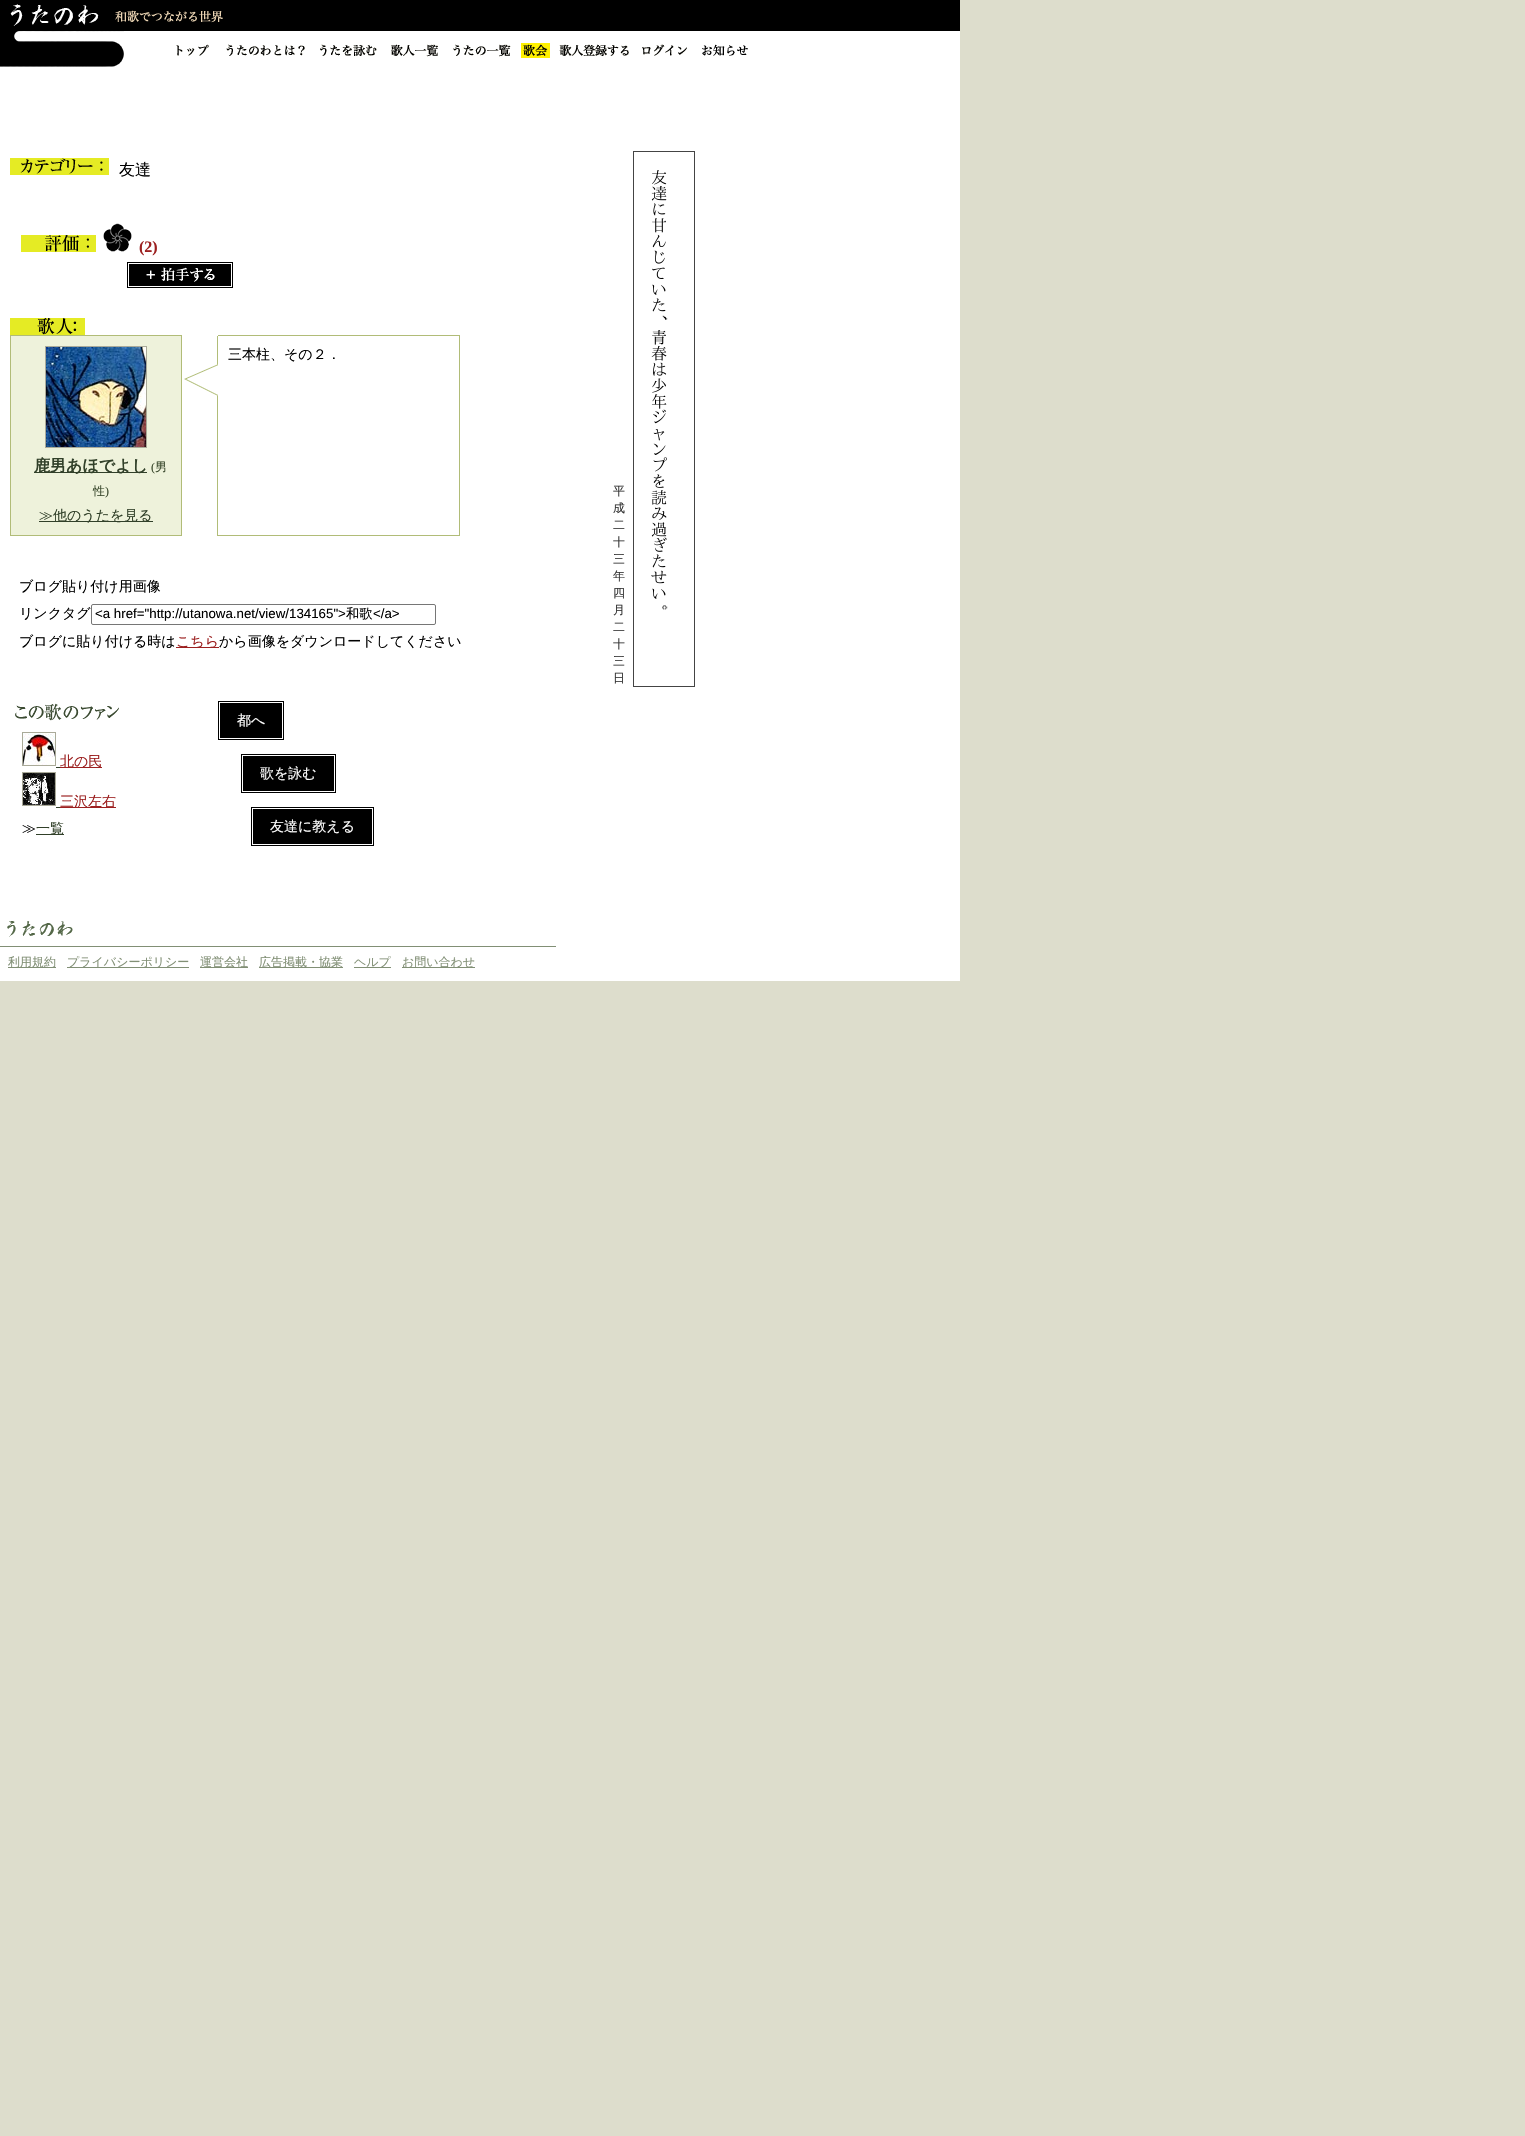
void draw(SkCanvas* canvas) {
	SkPaint fill;
	fill.setAntiAlias(true);
	auto makeFont = [&](const char* family, int weight, float size, bool italic = false) {
		SkFontStyle style(weight, SkFontStyle::kNormal_Width,
			italic ? SkFontStyle::kItalic_Slant : SkFontStyle::kUpright_Slant);
		SkFont result(fontMgr->matchFamilyStyle(family, style), size);
		result.setSubpixel(true);
		return result;
	};
	auto text = [&](const char* s, float x, float y, const SkFont& font) {
		canvas->drawString(s, x, y, font, fill);
	};
	auto box = [&](float l, float t, float r, float b) {
		canvas->drawRect(SkRect::MakeLTRB(l, t, r, b), fill);
	};
	auto picture = [&](const char* path, float l, float t, float r, float b) {
		auto image = SkImages::DeferredFromEncodedData(SkData::MakeFromFileName(path));
		canvas->drawImageRect(image, SkRect::MakeLTRB(l, t, r, b), SkSamplingOptions());
	};
	canvas->clear(0xFFDDDDCC);
	fill.setColor(0xFFFFFFFF);
	box(0, 31, 960, 981);
	fill.setColor(0xFF000000);
	box(0, 0, 960, 31);
	picture("image0.png", 10, 4, 223, 26);
	picture("image1.png", 0, 31, 124, 67);
	picture("image2.png", 176, 44, 209, 56);
	picture("image3.png", 226, 44, 305, 56);
	picture("image4.png", 320, 44, 377, 56);
	picture("image5.png", 391, 44, 438, 57);
	picture("image6.png", 453, 44, 511, 57);
	picture("image7.png", 521, 43, 550, 58);
	picture("image8.png", 559, 44, 629, 56);
	picture("image9.png", 642, 44, 687, 56);
	picture("image10.png", 702, 44, 748, 56);
	picture("image11.png", 10, 158, 109, 175);
	picture("image12.png", 21, 235, 96, 252);
	picture("image13.png", 103, 223, 132, 252);
	picture("image14.png", 127, 262, 233, 288);
	picture("image15.png", 10, 318, 85, 335);
	picture("image16.png", 184, 336, 218, 536);
	fill.setColor(0xFFB1BC78);
	box(218, 335, 460, 336);
	box(459, 335, 460, 536);
	box(218, 535, 460, 536);
	fill.setColor(0xFFEEF2DB);
	box(11, 336, 181, 535);
	fill.setColor(0xFFB1BC78);
	box(10, 335, 182, 336);
	box(181, 335, 182, 536);
	box(10, 535, 182, 536);
	box(10, 335, 11, 536);
	fill.setStyle(SkPaint::kStroke_Style);
	fill.setStrokeWidth(1);
	fill.setColor(0xFFAAAA99);
	canvas->drawRect(SkRect::MakeLTRB(45.5f, 346.5f, 146.5f, 447.5f), fill);
	picture("image17.png", 46, 347, 146, 447);
	fill.setStyle(SkPaint::kFill_Style);
	fill.setColor(0xFF314029);
	box(34, 472, 147, 473);
	box(39, 521, 153, 522);
	fill.setStyle(SkPaint::kStroke_Style);
	fill.setColor(0xFF767676);
	canvas->drawRoundRect(SkRect::MakeLTRB(91.5f, 604.5f, 435.5f, 624.5f), 1.5f, 1.5f, fill);
	fill.setStyle(SkPaint::kFill_Style);
	fill.setColor(0xFF9C2020);
	box(176, 647, 219, 648);
	picture("image18.png", 15, 703, 119, 721);
	fill.setStyle(SkPaint::kStroke_Style);
	fill.setColor(0xFFAAAA99);
	canvas->drawRect(SkRect::MakeLTRB(22.5f, 732.5f, 55.5f, 765.5f), fill);
	picture("image19.png", 23, 733, 55, 765);
	fill.setStyle(SkPaint::kFill_Style);
	fill.setColor(0xFF314029);
	box(56, 767, 60, 768);
	fill.setColor(0xFF9C2020);
	box(60, 767, 102, 768);
	fill.setStyle(SkPaint::kStroke_Style);
	fill.setColor(0xFFAAAA99);
	canvas->drawRect(SkRect::MakeLTRB(22.5f, 772.5f, 55.5f, 805.5f), fill);
	picture("image20.png", 23, 773, 55, 805);
	fill.setStyle(SkPaint::kFill_Style);
	fill.setColor(0xFF314029);
	box(56, 807, 60, 808);
	fill.setColor(0xFF9C2020);
	box(60, 807, 116, 808);
	fill.setColor(0xFF314029);
	box(36, 834, 64, 835);
	fill.setColor(0xFF000000);
	box(218, 701, 284, 740);
	fill.setStyle(SkPaint::kStroke_Style);
	fill.setColor(0xFFFFFFFF);
	canvas->drawRect(SkRect::MakeLTRB(219.5f, 702.5f, 282.5f, 738.5f), fill);
	fill.setStyle(SkPaint::kFill_Style);
	fill.setColor(0xFF000000);
	box(241, 754, 336, 793);
	fill.setStyle(SkPaint::kStroke_Style);
	fill.setColor(0xFFFFFFFF);
	canvas->drawRect(SkRect::MakeLTRB(242.5f, 755.5f, 334.5f, 791.5f), fill);
	fill.setStyle(SkPaint::kFill_Style);
	fill.setColor(0xFF000000);
	box(251, 807, 374, 846);
	fill.setStyle(SkPaint::kStroke_Style);
	fill.setColor(0xFFFFFFFF);
	canvas->drawRect(SkRect::MakeLTRB(252.5f, 808.5f, 372.5f, 844.5f), fill);
	fill.setColor(0xFF444444);
	canvas->drawRect(SkRect::MakeLTRB(633.5f, 151.5f, 694.5f, 686.5f), fill);
	picture("image21.png", 651, 170, 668, 610);
	picture("image22.png", 7, 921, 73, 937);
	fill.setStyle(SkPaint::kFill_Style);
	fill.setColor(0xFF818F75);
	box(0, 946, 556, 947);
	box(8, 967, 56, 968);
	box(67, 967, 189, 968);
	box(200, 967, 248, 968);
	box(259, 967, 343, 968);
	box(354, 967, 391, 968);
	box(402, 967, 475, 968);
	auto font1 = makeFont("WenQuanYi Zen Hei", 500, 16);
	fill.setColor(0xFF000000);
	text("友達", 119, 175, font1);
	auto font2 = makeFont("Liberation Serif", 700, 16);
	fill.setColor(0xFF9C2020);
	text("(2)", 139, 252, font2);
	auto font3 = makeFont("WenQuanYi Zen Hei", 500, 14);
	fill.setColor(0xFF000000);
	text("三本柱、その２．", 228, 359, font3);
	auto font4 = makeFont("WenQuanYi Zen Hei", 700, 16);
	fill.setColor(0xFF314029);
	text("鹿男あほでよし", 34, 471, font4);
	auto font5 = makeFont("Liberation Serif", 400, 12);
	fill.setColor(0xFF3A492D);
	text("(", 151, 471, font5);
	auto font6 = makeFont("WenQuanYi Zen Hei", 500, 12);
	text("男", 155, 471, font6);
	text("性", 93, 495, font6);
	text(")", 105, 495, font5);
	fill.setColor(0xFF314029);
	text("≫他のうたを見る", 39, 520, font3);
	fill.setColor(0xFF000000);
	text("ブログ貼り付け用画像", 19, 591, font3);
	text("リンクタグ", 19, 618, font3);
	auto font7 = makeFont("Liberation Sans", 400, 13.3f);
	text("<a href=\"http://utanowa.net/view/134165\">", 95, 618, font7);
	auto font8 = makeFont("WenQuanYi Zen Hei", 500, 13.3f);
	text("和歌", 346, 618, font8);
	text("</a>", 373, 618, font7);
	text("ブログに貼り付ける時は", 19, 646, font3);
	fill.setColor(0xFF9C2020);
	text("こちら", 176, 646, font3);
	fill.setColor(0xFF000000);
	text("から画像をダウンロードしてください", 219, 646, font3);
	fill.setColor(0xFF9C2020);
	text("北の民", 60, 766, font3);
	text("三沢左右", 60, 806, font3);
	fill.setColor(0xFF000000);
	text("≫", 22, 833, font3);
	fill.setColor(0xFF314029);
	text("一覧", 36, 833, font3);
	fill.setColor(0xFFFFFFFF);
	text("都へ", 237, 725, font3);
	text("歌を詠む", 260, 778, font3);
	text("友達に教える", 270, 831, font3);
	fill.setColor(0xFF333333);
	text("平", 613, 495, font6);
	text("成", 613, 512, font6);
	text("二", 613, 529, font6);
	text("十", 613, 546, font6);
	text("三", 613, 563, font6);
	text("年", 613, 580, font6);
	text("四", 613, 597, font6);
	text("月", 613, 614, font6);
	text("二", 613, 631, font6);
	text("十", 613, 648, font6);
	text("三", 613, 665, font6);
	text("日", 613, 682, font6);
	fill.setColor(0xFF818F75);
	text("利用規約", 8, 966, font6);
	text("プライバシーポリシー", 67, 966, font6);
	text("運営会社", 200, 966, font6);
	text("広告掲載・協業", 259, 966, font6);
	text("ヘルプ", 354, 966, font6);
	text("お問い合わせ", 402, 966, font6);
}
